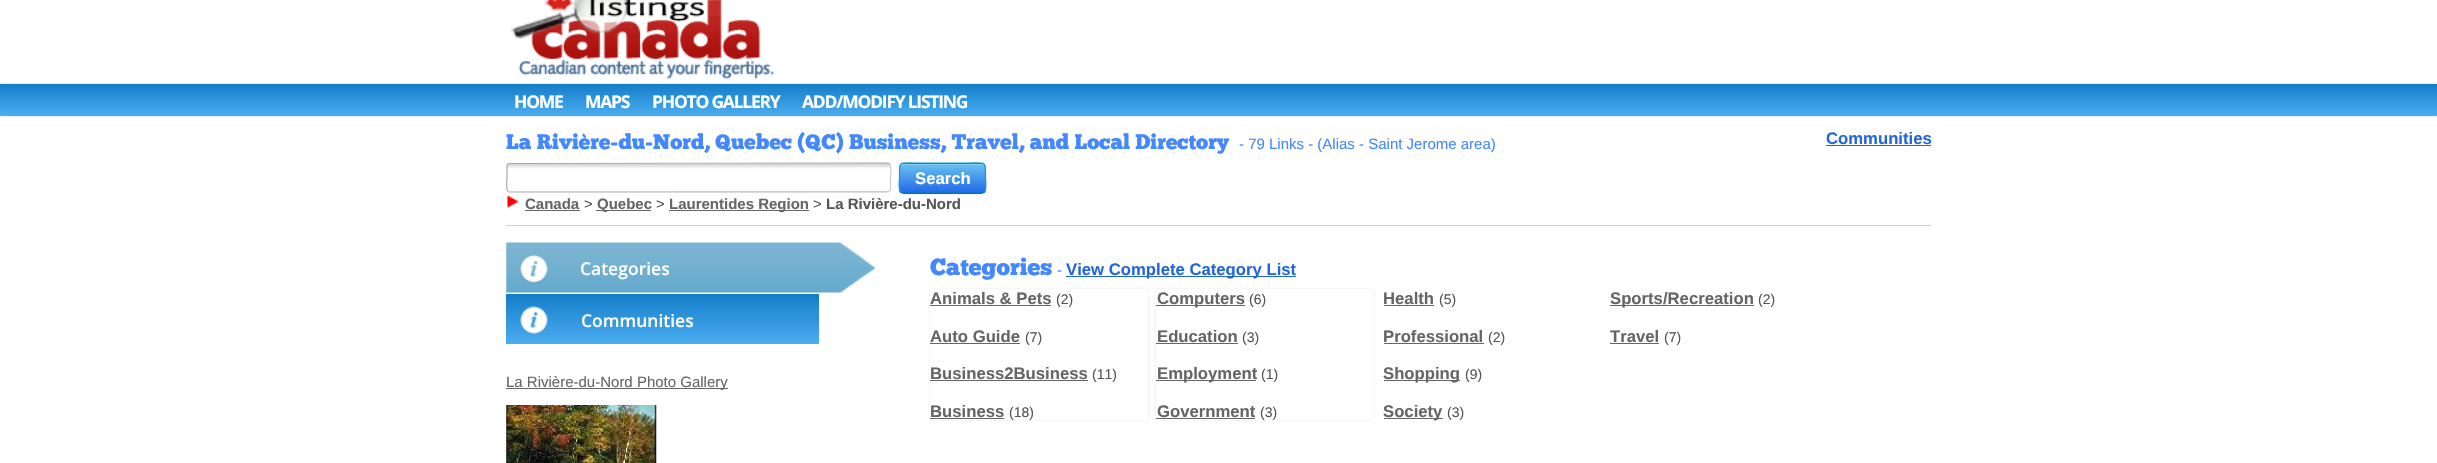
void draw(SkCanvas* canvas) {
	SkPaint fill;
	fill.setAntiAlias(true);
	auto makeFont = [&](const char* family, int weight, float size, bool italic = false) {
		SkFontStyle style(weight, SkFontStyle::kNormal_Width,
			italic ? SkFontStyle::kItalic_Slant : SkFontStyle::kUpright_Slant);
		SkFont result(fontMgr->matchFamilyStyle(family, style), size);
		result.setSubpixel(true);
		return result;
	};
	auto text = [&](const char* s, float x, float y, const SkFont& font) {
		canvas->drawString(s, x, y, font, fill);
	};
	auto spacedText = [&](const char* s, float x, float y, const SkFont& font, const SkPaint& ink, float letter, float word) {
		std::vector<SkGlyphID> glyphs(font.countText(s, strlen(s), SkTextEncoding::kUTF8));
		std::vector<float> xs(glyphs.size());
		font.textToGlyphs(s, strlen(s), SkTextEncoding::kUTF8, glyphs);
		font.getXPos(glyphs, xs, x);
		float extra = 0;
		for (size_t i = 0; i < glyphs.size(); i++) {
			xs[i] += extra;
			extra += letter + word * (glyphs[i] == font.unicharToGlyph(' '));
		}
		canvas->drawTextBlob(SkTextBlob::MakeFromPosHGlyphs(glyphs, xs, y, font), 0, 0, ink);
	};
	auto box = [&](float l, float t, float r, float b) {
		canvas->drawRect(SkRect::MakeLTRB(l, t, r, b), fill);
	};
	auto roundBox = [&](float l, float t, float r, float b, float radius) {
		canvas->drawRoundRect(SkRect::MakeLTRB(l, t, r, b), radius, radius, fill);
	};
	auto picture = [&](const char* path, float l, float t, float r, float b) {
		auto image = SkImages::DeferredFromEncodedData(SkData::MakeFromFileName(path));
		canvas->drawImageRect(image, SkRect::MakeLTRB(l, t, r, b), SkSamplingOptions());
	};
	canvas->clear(0xFFFFFFFF);
	picture("image0.png", 511, 0, 774, 79);
	fill.setColor(0x33000000);
	fill.setMaskFilter(SkMaskFilter::MakeBlur(kNormal_SkBlurStyle, 1));
	canvas->drawRect(SkRect::MakeLTRB(0, 84, 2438, 116), fill);
	fill.setMaskFilter(nullptr);
	{
		const SkColor colors[] = {0xFF147DC8, 0xFF4CADF2};
		const float stops[] = {0, 1};
		const SkPoint ends[] = {{1219, 84}, {1219, 116}};
		fill.setShader(SkGradientShader::MakeLinear(ends, colors, stops, 2, SkTileMode::kClamp));
		fill.setAlpha(255);
	}
	box(0, 84, 2437, 116);
	fill.setShader(nullptr);
	fill.setColor(0xFF2266DD);
	box(1826, 145, 1931, 146);
	canvas->save();
	canvas->clipPath(SkPathBuilder().moveTo(510, 163).lineTo(887, 163).cubicTo(889, 163, 891, 165, 891, 167).lineTo(891, 189).cubicTo(891, 191, 889, 193, 887, 193).lineTo(510, 193).cubicTo(508, 193, 506, 191, 506, 189).lineTo(506, 167).cubicTo(506, 165, 508, 163, 510, 163).close().detach(), true);
	{
		const SkColor colors[] = {0xFFD1D1D1, 0xFFFFFFFF, 0xFFFFFFFF};
		const float stops[] = {0, 0.18f, 1};
		const SkPoint ends[] = {{699, 164}, {699, 191}};
		fill.setShader(SkGradientShader::MakeLinear(ends, colors, stops, 3, SkTileMode::kClamp));
		fill.setAlpha(255);
	}
	box(506, 164, 891, 191);
	{
		const SkColor colors[] = {0xFFD1D1D1, 0xFFFFFFFF, 0xFFFFFFFF};
		const float stops[] = {0, 0.18f, 1};
		const SkPoint ends[] = {{699, 191}, {699, 219}};
		fill.setShader(SkGradientShader::MakeLinear(ends, colors, stops, 3, SkTileMode::kClamp));
		fill.setAlpha(255);
	}
	box(506, 191, 891, 193);
	canvas->restore();
	fill.setStyle(SkPaint::kStroke_Style);
	fill.setStrokeWidth(1.2f);
	fill.setShader(nullptr);
	fill.setColor(0xFFCCCCCC);
	canvas->drawPath(SkPathBuilder().moveTo(889.5f, 164).cubicTo(892, 166, 890.5f, 175, 890.5f, 177.5f).lineTo(890.5f, 185).cubicTo(890.5f, 187.5f, 891.5f, 191, 888.5f, 191.5f).lineTo(509.5f, 192).lineTo(508, 191).detach(), fill);
	fill.setColor(0xFFAAAAAA);
	canvas->drawPath(SkPathBuilder().moveTo(508, 191).cubicTo(505.5f, 189, 507, 180, 507, 177.5f).lineTo(507, 170).cubicTo(507, 167.5f, 506, 164, 509, 163.5f).lineTo(888, 163).lineTo(889.5f, 164).detach(), fill);
	fill.setStyle(SkPaint::kFill_Style);
	fill.setColor(0x0D000000);
	fill.setMaskFilter(SkMaskFilter::MakeBlur(kNormal_SkBlurStyle, 1));
	canvas->drawRoundRect(SkRect::MakeLTRB(899, 164, 986, 195), 5, 5, fill);
	fill.setMaskFilter(nullptr);
	fill.setColor(0xFF006DCC);
	roundBox(899, 163, 986, 194, 5);
	canvas->save();
	canvas->clipPath(SkPathBuilder().moveTo(904, 163).lineTo(981, 163).cubicTo(984, 163, 986, 165, 986, 168).lineTo(986, 189).cubicTo(986, 192, 984, 194, 981, 194).lineTo(904, 194).cubicTo(901, 194, 899, 192, 899, 189).lineTo(899, 168).cubicTo(899, 165, 901, 163, 904, 163).close().detach(), true);
	{
		const SkColor colors[] = {0xFF67C2EF, 0xFF2267E9};
		const float stops[] = {0, 1};
		const SkPoint ends[] = {{943, 164}, {943, 193}};
		fill.setShader(SkGradientShader::MakeLinear(ends, colors, stops, 2, SkTileMode::kClamp));
		fill.setAlpha(255);
	}
	box(899, 164, 986, 193);
	canvas->restore();
	fill.setShader(nullptr);
	fill.setColor(0x33FFFFFF);
	canvas->drawPath(SkPathBuilder().moveTo(904, 165).lineTo(981, 165).cubicTo(983, 165, 985, 167, 985, 169).cubicTo(985, 161, 973, 164, 968, 164).lineTo(917, 164).cubicTo(912, 164, 900, 161, 900, 169).cubicTo(900, 167, 902, 165, 904, 165).close().detach(), fill);
	fill.setStyle(SkPaint::kStroke_Style);
	fill.setColor(0xFF007BB8);
	canvas->drawPath(SkPathBuilder().moveTo(984.5f, 192).lineTo(981.5f, 193).lineTo(903.5f, 193).lineTo(900.5f, 192).detach(), fill);
	fill.setColor(0xFF1598D9);
	canvas->drawPath(SkPathBuilder().moveTo(900.5f, 192).cubicTo(898, 189, 899.5f, 181.5f, 899.5f, 178).cubicTo(899.5f, 160.5f, 898, 163, 916.5f, 163).lineTo(968.5f, 163).cubicTo(987, 163, 985.5f, 160.5f, 985.5f, 178).cubicTo(985.5f, 181.5f, 987, 189, 984.5f, 192).detach(), fill);
	picture("image1.png", 507, 195, 519, 208);
	fill.setStyle(SkPaint::kFill_Style);
	fill.setColor(0xFF666666);
	box(525, 210, 580, 211);
	box(596, 210, 651, 211);
	box(669, 210, 809, 211);
	fill.setColor(0xFFD0D0D0);
	box(506, 225, 1931, 226);
	picture("image2.png", 506, 242, 875, 293);
	picture("image3.png", 520, 255, 548, 284);
	{
		const SkColor colors[] = {0xFF147DC8, 0xFF4CADF2};
		const float stops[] = {0, 1};
		const SkPoint ends[] = {{663, 294}, {663, 344}};
		fill.setShader(SkGradientShader::MakeLinear(ends, colors, stops, 2, SkTileMode::kClamp));
		fill.setAlpha(255);
	}
	box(506, 294, 819, 344);
	picture("image4.png", 519, 306, 548, 335);
	fill.setShader(nullptr);
	fill.setColor(0xFF2266DD);
	box(1066, 276, 1296, 277);
	fill.setColor(0x1A000000);
	fill.setMaskFilter(SkMaskFilter::MakeBlur(kNormal_SkBlurStyle, 1));
	canvas->drawRect(SkRect::MakeLTRB(930, 289, 1148, 420), fill);
	fill.setMaskFilter(nullptr);
	fill.setColor(0xFFFFFFFF);
	box(930, 289, 1148, 420);
	fill.setColor(0xFF666666);
	box(930, 305, 1051, 306);
	box(930, 343, 1020, 344);
	box(930, 380, 1088, 381);
	box(930, 418, 1004, 419);
	fill.setColor(0x1A000000);
	fill.setMaskFilter(SkMaskFilter::MakeBlur(kNormal_SkBlurStyle, 1));
	canvas->drawRect(SkRect::MakeLTRB(1156, 289, 1374, 420), fill);
	fill.setMaskFilter(nullptr);
	fill.setColor(0xFFFFFFFF);
	box(1156, 289, 1374, 420);
	fill.setColor(0xFF666666);
	box(1156, 305, 1245, 306);
	box(1156, 343, 1238, 344);
	box(1156, 380, 1256, 381);
	box(1156, 418, 1255, 419);
	box(1384, 305, 1434, 306);
	box(1384, 343, 1484, 344);
	box(1384, 380, 1460, 381);
	box(1384, 418, 1443, 419);
	box(1610, 305, 1754, 306);
	box(1610, 343, 1659, 344);
	box(506, 388, 728, 389);
	picture("image5.png", 506, 405, 657, 463);
	auto font1 = makeFont("Open Sans", 700, 17.5f);
	fill.setColor(0xFFFFFFFF);
	spacedText("HOME", 514, 108, font1, fill, -1.25f, 0);
	spacedText("MAPS", 585, 108, font1, fill, -1.25f, 0);
	spacedText("PHOTO GALLERY", 652, 108, font1, fill, -1.25f, 0);
	spacedText("ADD/MODIFY LISTING", 802, 108, font1, fill, -1.25f, 0);
	auto font2 = makeFont("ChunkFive", 400, 21);
	fill.setColor(0xFF4488FF);
	text("La Rivière-du-Nord, Quebec (QC) Business, Travel, and Local Directory", 506, 149, font2);
	auto font3 = makeFont("Liberation Sans", 400, 15);
	text("- 79 Links - (Alias - Saint Jerome area)", 1239, 149, font3);
	auto font4 = makeFont("Liberation Sans", 700, 16.7f);
	fill.setColor(0xFF2266DD);
	text("Communities", 1826, 144, font4);
	fill.setColor(0xFFFFFFFF);
	text("Search", 915, 184, font4);
	auto font5 = makeFont("Liberation Sans", 700, 15);
	fill.setColor(0xFF666666);
	text("Canada", 525, 209, font5);
	fill.setColor(0xFF555555);
	text(">", 584, 209, font3);
	fill.setColor(0xFF666666);
	text("Quebec", 597, 209, font5);
	fill.setColor(0xFF555555);
	text(">", 656, 209, font3);
	fill.setColor(0xFF666666);
	text("Laurentides Region", 669, 209, font5);
	fill.setColor(0xFF555555);
	text(">", 813, 209, font3);
	text("La Rivière-du-Nord", 826, 209, font5);
	auto font6 = makeFont("Open Sans", 600, 17.5f);
	fill.setColor(0xFFFFFFFF);
	text("Categories", 580, 275, font6);
	text("Communities", 581, 327, font6);
	auto font7 = makeFont("ChunkFive", 400, 23.5f);
	fill.setColor(0xFF4488FF);
	text("Categories", 930, 275, font7);
	text("-", 1057, 275, font3);
	fill.setColor(0xFF2266DD);
	text("View Complete Category List", 1066, 275, font4);
	fill.setColor(0xFF666666);
	text("Animals & Pets", 930, 304, font4);
	auto font8 = makeFont("Liberation Sans", 400, 14);
	fill.setColor(0xFF555555);
	text("(2)", 1056, 304, font8);
	fill.setColor(0xFF666666);
	text("Auto Guide", 930, 342, font4);
	fill.setColor(0xFF555555);
	text("(7)", 1025, 342, font8);
	fill.setColor(0xFF666666);
	text("Business2Business", 930, 379, font4);
	fill.setColor(0xFF555555);
	text("(11)", 1092, 379, font8);
	fill.setColor(0xFF666666);
	text("Business", 930, 417, font4);
	fill.setColor(0xFF555555);
	text("(18)", 1009, 417, font8);
	fill.setColor(0xFF666666);
	text("Computers", 1157, 304, font4);
	fill.setColor(0xFF555555);
	text("(6)", 1249, 304, font8);
	fill.setColor(0xFF666666);
	text("Education", 1157, 342, font4);
	fill.setColor(0xFF555555);
	text("(3)", 1242, 342, font8);
	fill.setColor(0xFF666666);
	text("Employment", 1157, 379, font4);
	fill.setColor(0xFF555555);
	text("(1)", 1261, 379, font8);
	fill.setColor(0xFF666666);
	text("Government", 1157, 417, font4);
	fill.setColor(0xFF555555);
	text("(3)", 1260, 417, font8);
	fill.setColor(0xFF666666);
	text("Health", 1383, 304, font4);
	fill.setColor(0xFF555555);
	text("(5)", 1439, 304, font8);
	fill.setColor(0xFF666666);
	text("Professional", 1383, 342, font4);
	fill.setColor(0xFF555555);
	text("(2)", 1488, 342, font8);
	fill.setColor(0xFF666666);
	text("Shopping", 1383, 379, font4);
	fill.setColor(0xFF555555);
	text("(9)", 1465, 379, font8);
	fill.setColor(0xFF666666);
	text("Society", 1383, 417, font4);
	fill.setColor(0xFF555555);
	text("(3)", 1447, 417, font8);
	fill.setColor(0xFF666666);
	text("Sports/Recreation", 1610, 304, font4);
	fill.setColor(0xFF555555);
	text("(2)", 1758, 304, font8);
	fill.setColor(0xFF666666);
	text("Travel", 1610, 342, font4);
	fill.setColor(0xFF555555);
	text("(7)", 1664, 342, font8);
	fill.setColor(0xFF666666);
	text("La Rivière-du-Nord Photo Gallery", 506, 387, font3);
}
